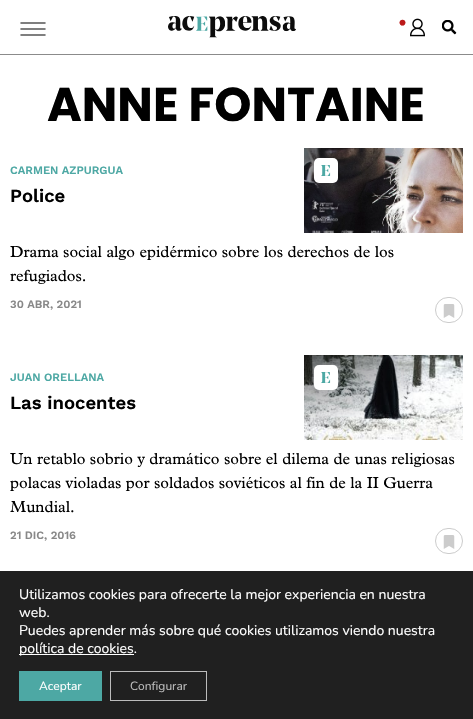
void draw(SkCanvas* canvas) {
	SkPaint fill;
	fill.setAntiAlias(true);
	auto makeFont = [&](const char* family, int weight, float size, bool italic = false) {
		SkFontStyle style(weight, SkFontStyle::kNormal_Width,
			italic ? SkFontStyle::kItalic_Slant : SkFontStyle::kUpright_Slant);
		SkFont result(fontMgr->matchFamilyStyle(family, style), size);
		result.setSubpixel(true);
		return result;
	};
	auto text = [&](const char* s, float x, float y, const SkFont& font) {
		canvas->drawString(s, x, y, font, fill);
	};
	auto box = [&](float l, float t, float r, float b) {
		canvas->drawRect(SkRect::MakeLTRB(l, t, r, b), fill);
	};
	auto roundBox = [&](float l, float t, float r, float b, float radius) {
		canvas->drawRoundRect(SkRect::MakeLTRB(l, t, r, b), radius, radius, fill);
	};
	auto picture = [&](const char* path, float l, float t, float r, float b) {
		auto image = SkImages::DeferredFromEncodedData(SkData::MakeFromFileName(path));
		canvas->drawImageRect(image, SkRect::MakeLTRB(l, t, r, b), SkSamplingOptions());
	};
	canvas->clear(0xFFFFFFFF);
	fill.setColor(0xFF8B8B8B);
	box(0, 54, 473, 55);
	fill.setStyle(SkPaint::kStroke_Style);
	fill.setStrokeWidth(1.1f);
	fill.setStrokeCap(SkPaint::kSquare_Cap);
	fill.setColor(0xFF000000);
	canvas->drawPath(SkPathBuilder().moveTo(21, 23).lineTo(45, 23).moveTo(21, 29).lineTo(45, 29).moveTo(21, 35).lineTo(45, 35).detach(), fill);
	picture("image0.png", 168, 16, 296, 38);
	picture("image1.png", 410, 18, 425, 37);
	picture("image2.png", 442, 20, 457, 35);
	picture("image3.png", 304, 148, 463, 233);
	fill.setStyle(SkPaint::kFill_Style);
	fill.setColor(0xFFFFFFFF);
	roundBox(314, 158, 338, 183, 5);
	picture("image4.png", 321, 165, 331, 176);
	fill.setStyle(SkPaint::kStroke_Style);
	fill.setStrokeWidth(1);
	fill.setStrokeCap(SkPaint::kButt_Cap);
	fill.setColor(0xFFCCCCCC);
	canvas->drawRoundRect(SkRect::MakeLTRB(435.5f, 297.5f, 462.5f, 322.5f), 12.5f, 12.5f, fill);
	picture("image5.png", 443, 304, 455, 318);
	picture("image6.png", 304, 355, 463, 440);
	fill.setStyle(SkPaint::kFill_Style);
	fill.setColor(0xFFFFFFFF);
	roundBox(314, 365, 338, 390, 5);
	picture("image4.png", 321, 372, 331, 383);
	fill.setStyle(SkPaint::kStroke_Style);
	fill.setColor(0xFFCCCCCC);
	canvas->drawRoundRect(SkRect::MakeLTRB(435.5f, 528.5f, 462.5f, 553.5f), 12.5f, 12.5f, fill);
	picture("image5.png", 443, 535, 455, 549);
	fill.setStyle(SkPaint::kFill_Style);
	fill.setColor(0xFF202020);
	box(0, 571, 473, 719);
	fill.setColor(0xFFFFFFFF);
	box(19, 654, 134, 655);
	fill.setColor(0xFF4DA8A4);
	box(19, 671, 102, 701);
	fill.setStyle(SkPaint::kStroke_Style);
	fill.setColor(0xFFBCBCBC);
	canvas->drawRect(SkRect::MakeLTRB(110.5f, 671.5f, 206.5f, 700.5f), fill);
	auto font1 = makeFont("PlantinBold", 700, 32);
	fill.setStyle(SkPaint::kFill_Style);
	fill.setColor(0xFFBC1919);
	text("·", 397, 33, font1);
	auto font2 = makeFont("Poppins", 700, 47.25f);
	fill.setColor(0xFF000000);
	text("ANNE FONTAINE", 47, 121, font2);
	auto font3 = makeFont("Work Sans", 600, 11.25f);
	fill.setColor(0xFF4DA8A4);
	text("CARMEN AZPURGUA", 10, 174, font3);
	auto font4 = makeFont("Work Sans", 600, 18.5f);
	fill.setColor(0xFF000000);
	text("Police", 10, 202, font4);
	auto font5 = makeFont("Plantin", 400, 16);
	text("Drama social algo epidérmico sobre los derechos de los", 10, 257, font5);
	text("refugiados.", 10, 281, font5);
	fill.setColor(0xFF888888);
	text("30 ABR, 2021", 10, 308, font3);
	fill.setColor(0xFF4DA8A4);
	text("JUAN ORELLANA", 10, 381, font3);
	fill.setColor(0xFF000000);
	text("Las inocentes", 10, 409, font4);
	text("Un retablo sobrio y dramático sobre el dilema de unas religiosas", 10, 464, font5);
	text("polacas violadas por soldados soviéticos al fin de la II Guerra", 10, 488, font5);
	text("Mundial.", 10, 512, font5);
	fill.setColor(0xFF888888);
	text("21 DIC, 2016", 10, 539, font3);
	auto font6 = makeFont("Nunito", 400, 14);
	fill.setColor(0xFFFFFFFF);
	text("Utilizamos cookies para ofrecerte la mejor experiencia en nuestra", 19, 599, font6);
	text("web.", 19, 617, font6);
	text("Puedes aprender más sobre qué cookies utilizamos viendo nuestra", 19, 635, font6);
	text("política de cookies.", 19, 653, font6);
	auto font7 = makeFont("Nunito", 400, 12);
	text("Aceptar", 39, 690, font7);
	fill.setColor(0xFFBCBCBC);
	text("Configurar", 130, 690, font7);
}
